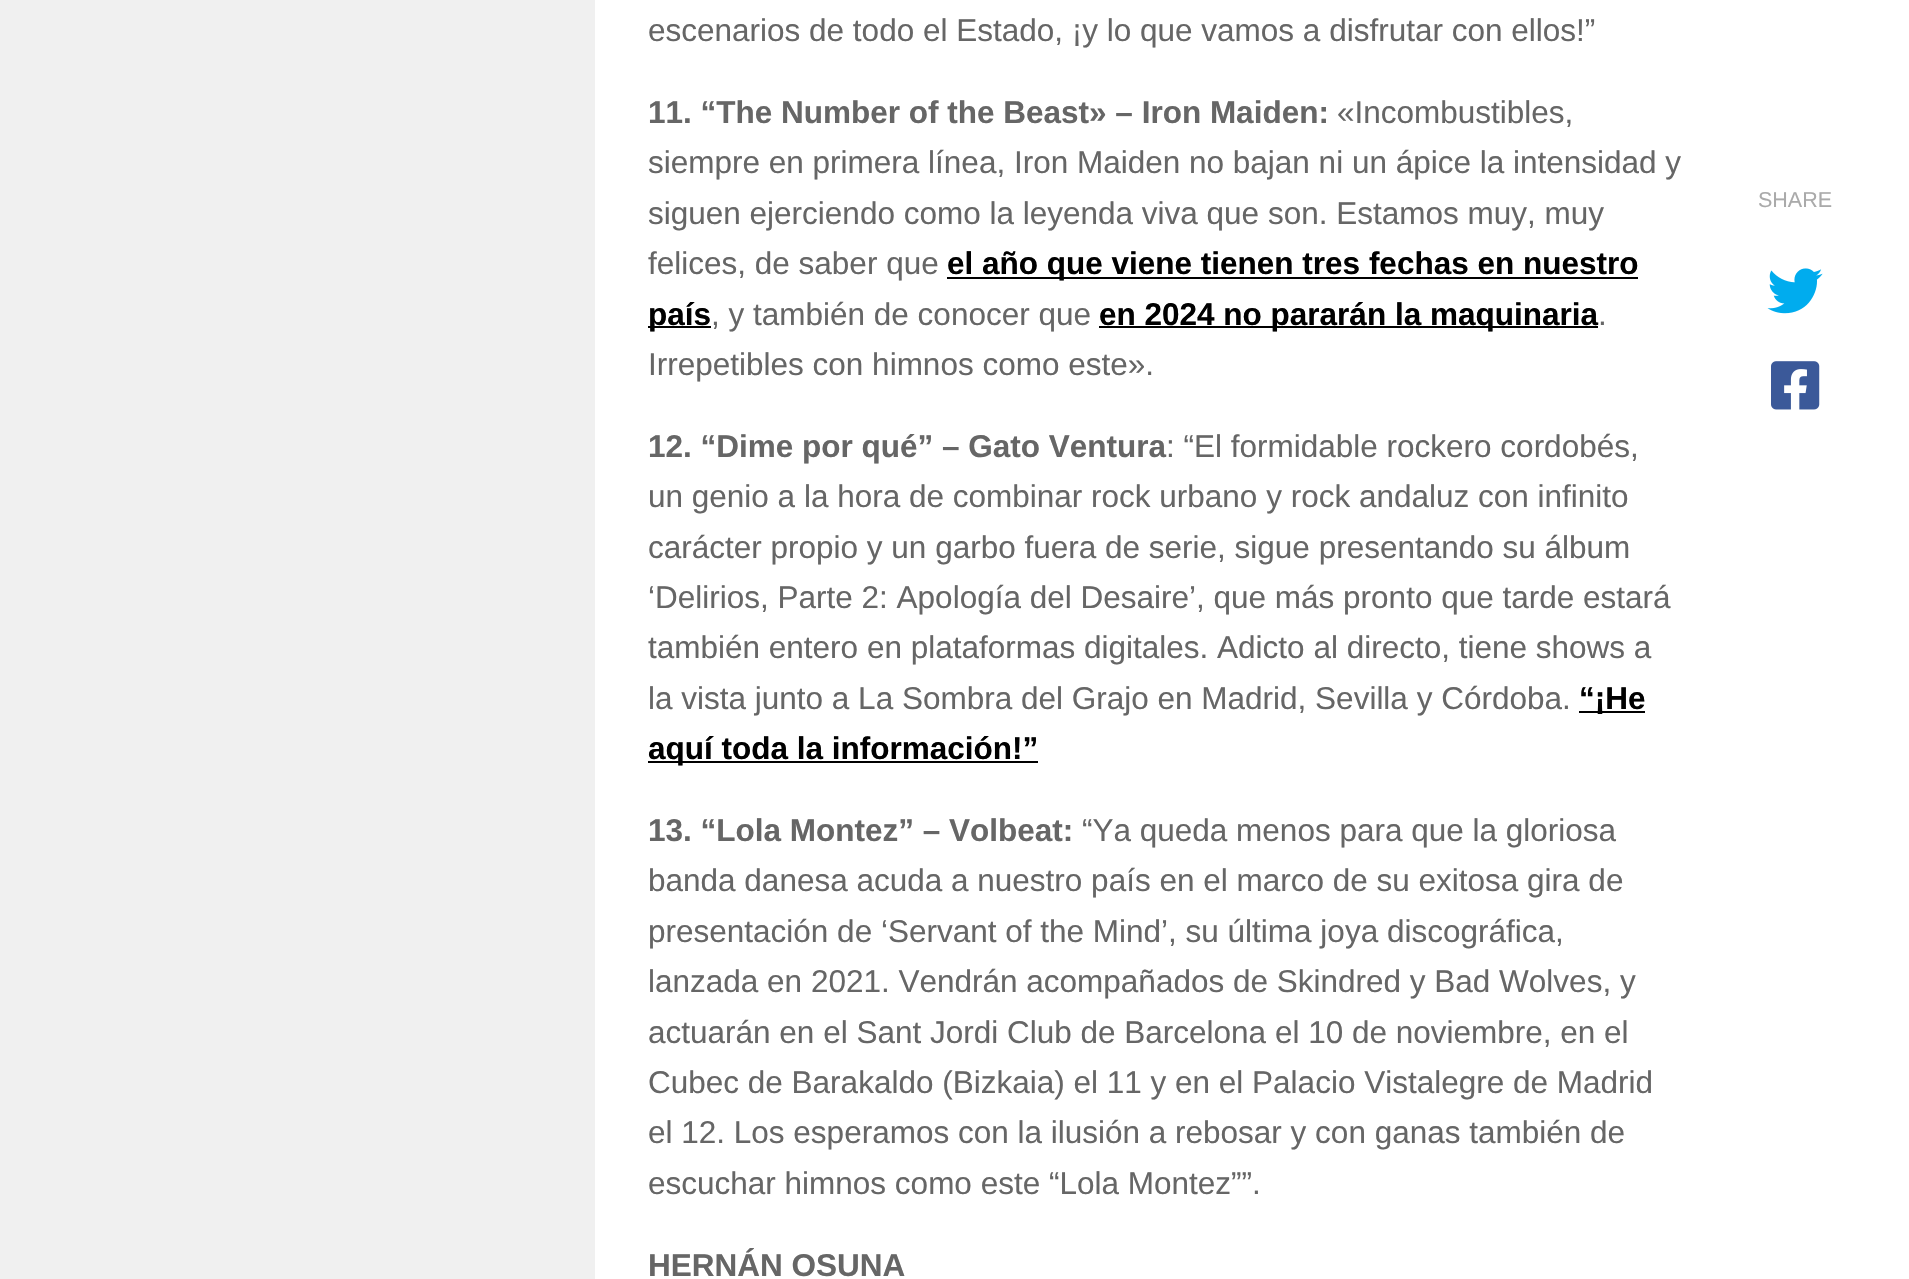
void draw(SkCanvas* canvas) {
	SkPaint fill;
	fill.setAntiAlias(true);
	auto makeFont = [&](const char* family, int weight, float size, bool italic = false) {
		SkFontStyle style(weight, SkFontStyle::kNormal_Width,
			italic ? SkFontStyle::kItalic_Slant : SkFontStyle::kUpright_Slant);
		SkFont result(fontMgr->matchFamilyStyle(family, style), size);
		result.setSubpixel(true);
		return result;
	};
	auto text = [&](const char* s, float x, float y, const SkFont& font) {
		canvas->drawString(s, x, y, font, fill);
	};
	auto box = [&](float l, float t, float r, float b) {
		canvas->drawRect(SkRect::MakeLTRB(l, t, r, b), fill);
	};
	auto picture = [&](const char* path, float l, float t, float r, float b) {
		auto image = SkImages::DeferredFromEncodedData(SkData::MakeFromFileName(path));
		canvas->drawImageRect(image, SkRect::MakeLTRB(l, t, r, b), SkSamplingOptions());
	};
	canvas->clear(0xFFFFFFFF);
	fill.setColor(0xFFF0F0F0);
	box(0, 0, 595, 1279);
	fill.setColor(0xFF000000);
	box(947, 277, 1638, 279);
	box(648, 326, 711, 328);
	box(1099, 326, 1598, 328);
	box(1579, 711, 1645, 713);
	box(648, 761, 1038, 763);
	picture("image0.png", 1767, 268, 1823, 314);
	picture("image1.png", 1771, 361, 1820, 410);
	auto font1 = makeFont("Liberation Sans", 400, 31.5f);
	fill.setColor(0xFF666666);
	text("escenarios de todo el Estado, ¡y lo que vamos a disfrutar con ellos!”", 648, 41, font1);
	auto font2 = makeFont("Liberation Sans", 700, 31.5f);
	text("11. “The Number of the Beast» – Iron Maiden:", 648, 123, font2);
	text("«Incombustibles,", 1337, 123, font1);
	text("siempre en primera línea, Iron Maiden no bajan ni un ápice la intensidad y", 648, 173, font1);
	text("siguen ejerciendo como la leyenda viva que son. Estamos muy, muy", 648, 224, font1);
	text("felices, de saber que", 648, 274, font1);
	fill.setColor(0xFF000000);
	text("el año que viene tienen tres fechas en nuestro", 947, 274, font2);
	text("país", 648, 325, font2);
	fill.setColor(0xFF666666);
	text(", y también de conocer que", 711, 325, font1);
	fill.setColor(0xFF000000);
	text("en 2024 no pararán la maquinaria", 1099, 325, font2);
	fill.setColor(0xFF666666);
	text(".", 1598, 325, font1);
	text("Irrepetibles con himnos como este».", 648, 375, font1);
	text("12. “Dime por qué” – Gato Ventura", 648, 457, font2);
	text(": “El formidable rockero cordobés,", 1166, 457, font1);
	text("un genio a la hora de combinar rock urbano y rock andaluz con infinito", 648, 507, font1);
	text("carácter propio y un garbo fuera de serie, sigue presentando su álbum", 648, 558, font1);
	text("‘Delirios, Parte 2: Apología del Desaire’, que más pronto que tarde estará", 648, 608, font1);
	text("también entero en plataformas digitales. Adicto al directo, tiene shows a", 648, 658, font1);
	text("la vista junto a La Sombra del Grajo en Madrid, Sevilla y Córdoba.", 648, 709, font1);
	fill.setColor(0xFF000000);
	text("“¡He", 1579, 709, font2);
	text("aquí toda la información!”", 648, 759, font2);
	fill.setColor(0xFF666666);
	text("13. “Lola Montez” – Volbeat:", 648, 841, font2);
	text("“Ya queda menos para que la gloriosa", 1082, 841, font1);
	text("banda danesa acuda a nuestro país en el marco de su exitosa gira de", 648, 891, font1);
	text("presentación de ‘Servant of the Mind’, su última joya discográfica,", 648, 942, font1);
	text("lanzada en 2021. Vendrán acompañados de Skindred y Bad Wolves, y", 648, 992, font1);
	text("actuarán en el Sant Jordi Club de Barcelona el 10 de noviembre, en el", 648, 1043, font1);
	text("Cubec de Barakaldo (Bizkaia) el 11 y en el Palacio Vistalegre de Madrid", 648, 1093, font1);
	text("el 12. Los esperamos con la ilusión a rebosar y con ganas también de", 648, 1143, font1);
	text("escuchar himnos como este “Lola Montez””.", 648, 1194, font1);
	text("HERNÁN OSUNA", 648, 1276, font2);
	auto font3 = makeFont("Liberation Sans", 400, 21.5f);
	fill.setColor(0xFFAAAAAA);
	text("SHARE", 1758, 207, font3);
}
